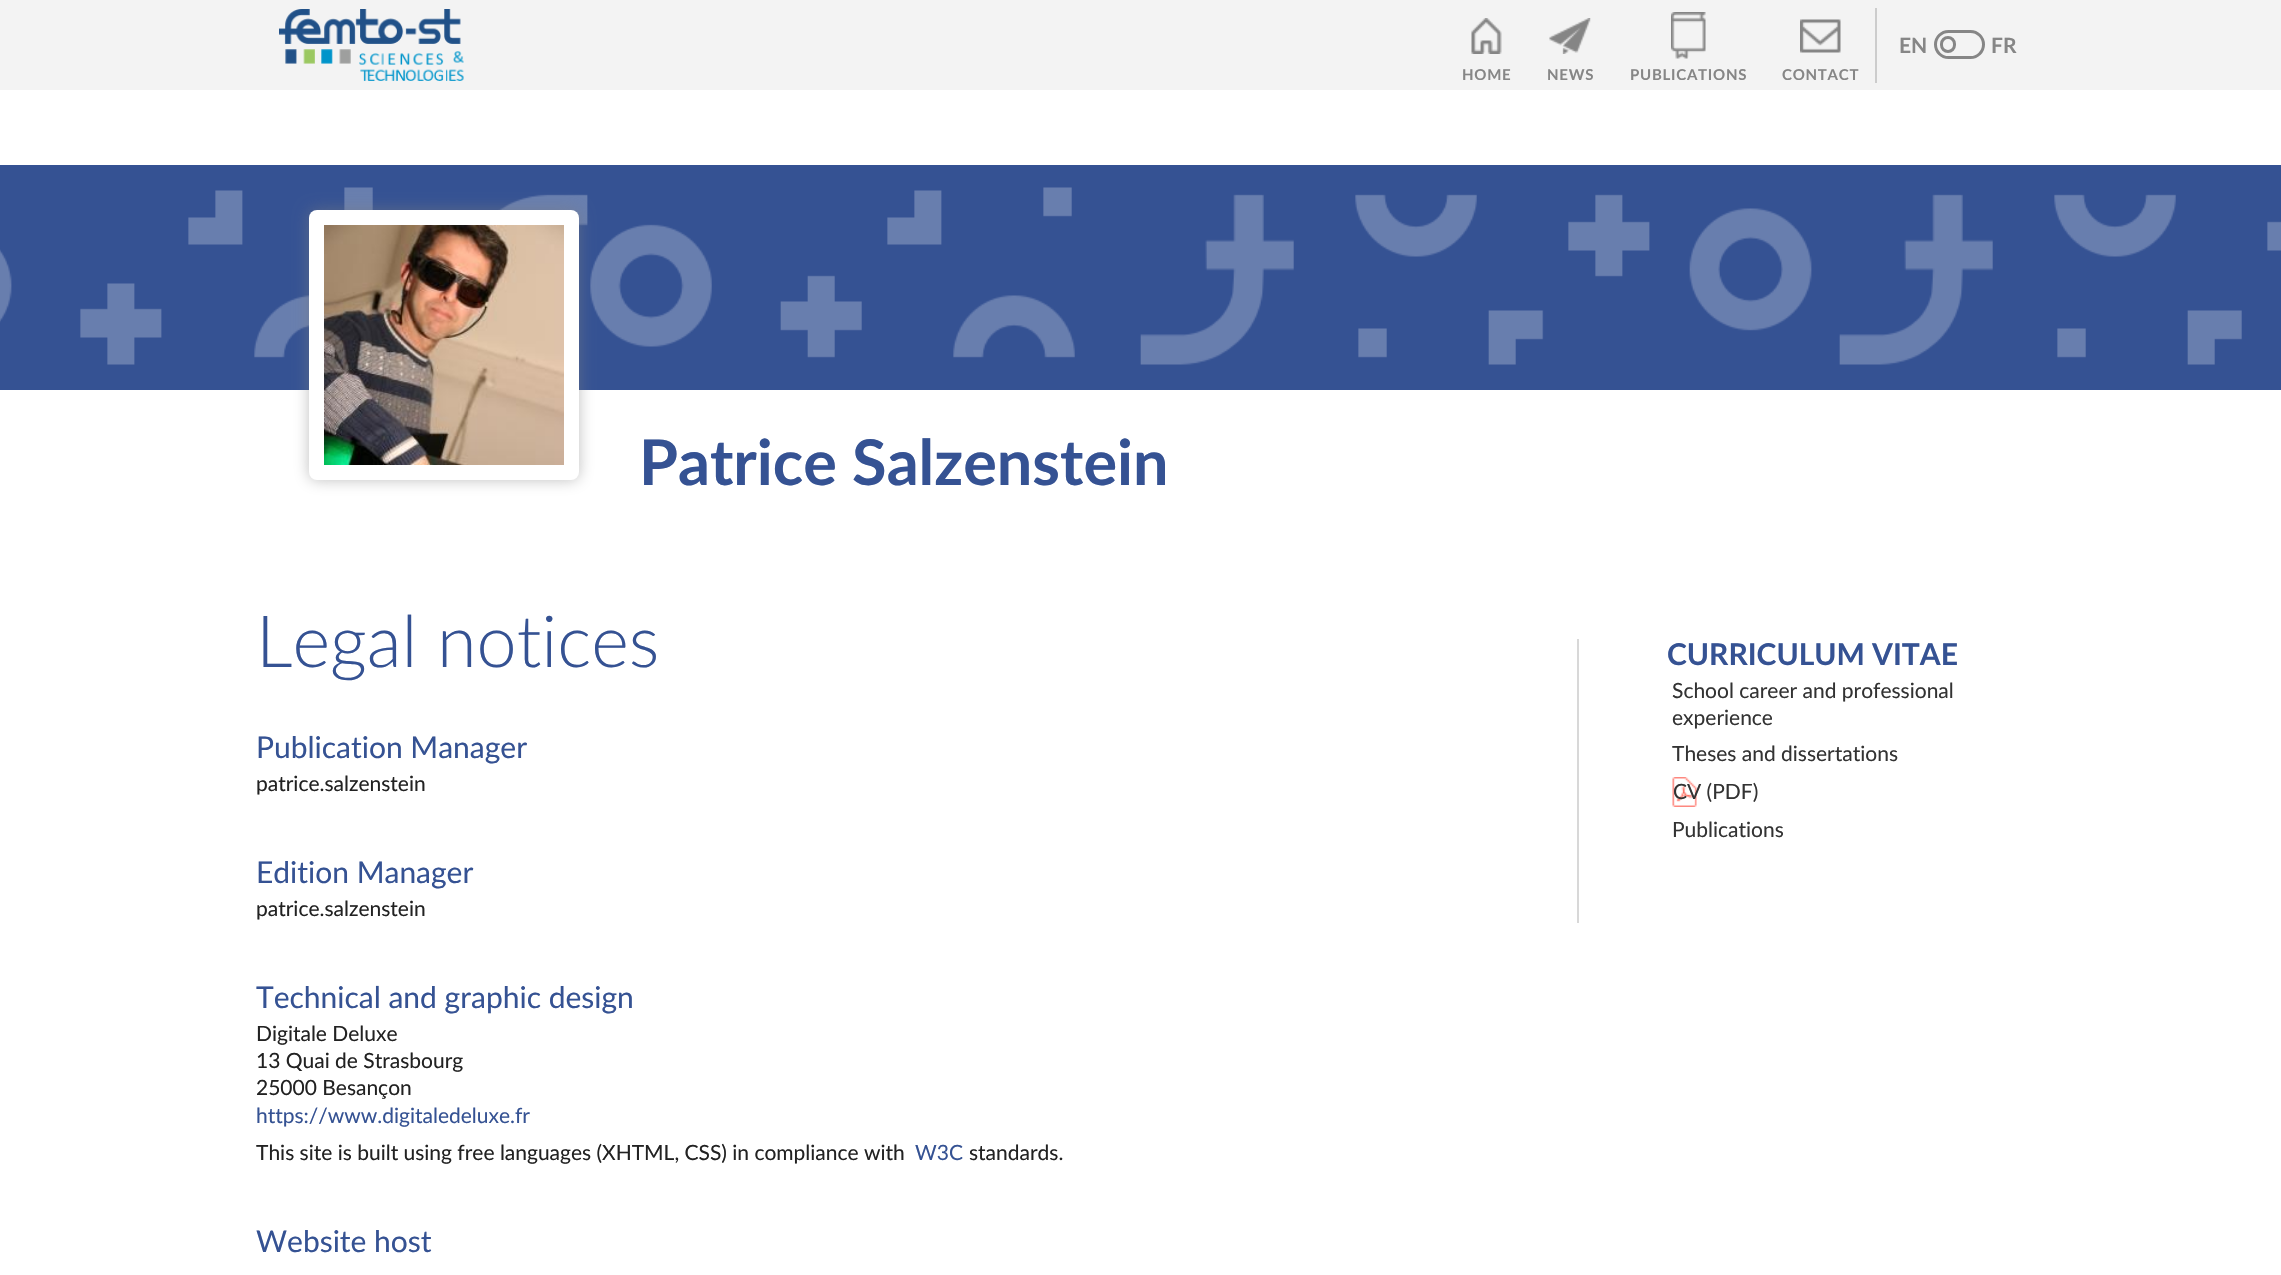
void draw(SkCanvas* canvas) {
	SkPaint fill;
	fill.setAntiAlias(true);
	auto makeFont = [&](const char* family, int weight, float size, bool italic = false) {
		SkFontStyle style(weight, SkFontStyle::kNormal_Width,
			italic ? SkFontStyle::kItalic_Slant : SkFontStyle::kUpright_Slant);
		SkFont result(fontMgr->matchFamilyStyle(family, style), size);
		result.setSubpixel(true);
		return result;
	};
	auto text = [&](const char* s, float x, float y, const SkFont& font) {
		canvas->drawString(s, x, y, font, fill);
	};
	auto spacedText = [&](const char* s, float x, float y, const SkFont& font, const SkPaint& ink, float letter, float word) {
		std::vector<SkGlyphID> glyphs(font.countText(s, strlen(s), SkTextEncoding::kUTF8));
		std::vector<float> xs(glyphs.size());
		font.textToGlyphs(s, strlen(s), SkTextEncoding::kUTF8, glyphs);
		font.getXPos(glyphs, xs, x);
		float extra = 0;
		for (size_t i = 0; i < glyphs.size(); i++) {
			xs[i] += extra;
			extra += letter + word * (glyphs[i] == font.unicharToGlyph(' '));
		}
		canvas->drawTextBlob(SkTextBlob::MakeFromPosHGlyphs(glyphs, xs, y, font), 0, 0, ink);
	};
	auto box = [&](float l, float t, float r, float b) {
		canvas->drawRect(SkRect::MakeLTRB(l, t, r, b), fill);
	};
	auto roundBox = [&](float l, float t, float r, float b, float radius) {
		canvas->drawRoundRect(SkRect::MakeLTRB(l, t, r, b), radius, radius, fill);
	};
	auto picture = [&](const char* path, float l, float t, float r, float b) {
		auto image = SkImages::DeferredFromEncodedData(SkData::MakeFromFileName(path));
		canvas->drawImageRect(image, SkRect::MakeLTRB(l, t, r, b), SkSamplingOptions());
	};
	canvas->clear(0xFFFFFFFF);
	fill.setColor(0xFFF3F3F3);
	box(0, 0, 2281, 90);
	fill.setColor(0xFFCCCCCC);
	box(1875, 8, 1877, 83);
	fill.setStyle(SkPaint::kStroke_Style);
	fill.setStrokeWidth(3);
	fill.setColor(0xFF868686);
	canvas->drawRoundRect(SkRect::MakeLTRB(1935.5f, 31.5f, 1983.5f, 57.5f), 13, 13, fill);
	canvas->drawRoundRect(SkRect::MakeLTRB(1941.5f, 37.5f, 1954.5f, 51.5f), 6.5f, 6.5f, fill);
	picture("image0.png", 279, 9, 464, 81);
	picture("image1.png", 1471, 18, 1502, 54);
	picture("image2.png", 1549, 18, 1591, 54);
	picture("image3.png", 1671, 12, 1706, 59);
	picture("image4.png", 1800, 19, 1841, 53);
	fill.setStyle(SkPaint::kFill_Style);
	fill.setColor(0xFF355293);
	box(0, 165, 2281, 390);
	picture("image6.png", 0, 187, 2281, 365);
	fill.setColor(0x807D7D7D);
	fill.setMaskFilter(SkMaskFilter::MakeBlur(kNormal_SkBlurStyle, 7.5f));
	canvas->drawRoundRect(SkRect::MakeLTRB(309, 210, 579, 480), 8, 8, fill);
	fill.setMaskFilter(nullptr);
	fill.setColor(0xFFFFFFFF);
	roundBox(309, 210, 579, 480, 8);
	picture("image5.png", 324, 225, 564, 465);
	fill.setColor(0xFFD8D8D8);
	box(1577, 639, 1579, 923);
	picture("image7.png", 1672, 777, 1697, 807);
	auto font1 = makeFont("Lato", 700, 21);
	fill.setColor(0xFF868686);
	text("EN", 1899, 53, font1);
	text("FR", 1991, 53, font1);
	auto font2 = makeFont("Lato", 700, 15);
	spacedText("HOME", 1462, 80, font2, fill, 0.75f, 0);
	spacedText("NEWS", 1547, 80, font2, fill, 0.75f, 0);
	spacedText("PUBLICATIONS", 1630, 80, font2, fill, 0.75f, 0);
	spacedText("CONTACT", 1782, 80, font2, fill, 0.75f, 0);
	auto font3 = makeFont("Lato", 700, 63);
	fill.setColor(0xFF355293);
	text("Patrice Salzenstein", 639, 485, font3);
	auto font4 = makeFont("Lato", 300, 72);
	text("Legal notices", 256, 667, font4);
	auto font5 = makeFont("Lato", 400, 30);
	text("Publication Manager", 256, 758, font5);
	auto font6 = makeFont("Lato", 400, 21);
	fill.setColor(0xFF222222);
	text("patrice.salzenstein", 256, 791, font6);
	fill.setColor(0xFF355293);
	text("Edition Manager", 256, 883, font5);
	fill.setColor(0xFF222222);
	text("patrice.salzenstein", 256, 916, font6);
	fill.setColor(0xFF355293);
	text("Technical and graphic design", 256, 1008, font5);
	fill.setColor(0xFF222222);
	text("Digitale Deluxe", 256, 1041, font6);
	text("13 Quai de Strasbourg", 256, 1068, font6);
	text("25000 Besançon", 256, 1095, font6);
	fill.setColor(0xFF355293);
	text("https://www.digitaledeluxe.fr", 256, 1123, font6);
	fill.setColor(0xFF222222);
	text("This site is built using free languages (XHTML, CSS) in compliance with", 256, 1160, font6);
	fill.setColor(0xFF355293);
	text("W3C", 915, 1160, font6);
	fill.setColor(0xFF222222);
	text("standards.", 969, 1160, font6);
	fill.setColor(0xFF355293);
	text("Website host", 256, 1252, font5);
	auto font7 = makeFont("Lato", 700, 30);
	text("CURRICULUM VITAE", 1667, 665, font7);
	fill.setColor(0xFF333333);
	text("School career and professional", 1672, 698, font6);
	text("experience", 1672, 725, font6);
	text("Theses and dissertations", 1672, 761, font6);
	text("CV (PDF)", 1673, 799, font6);
	text("Publications", 1672, 837, font6);
}
